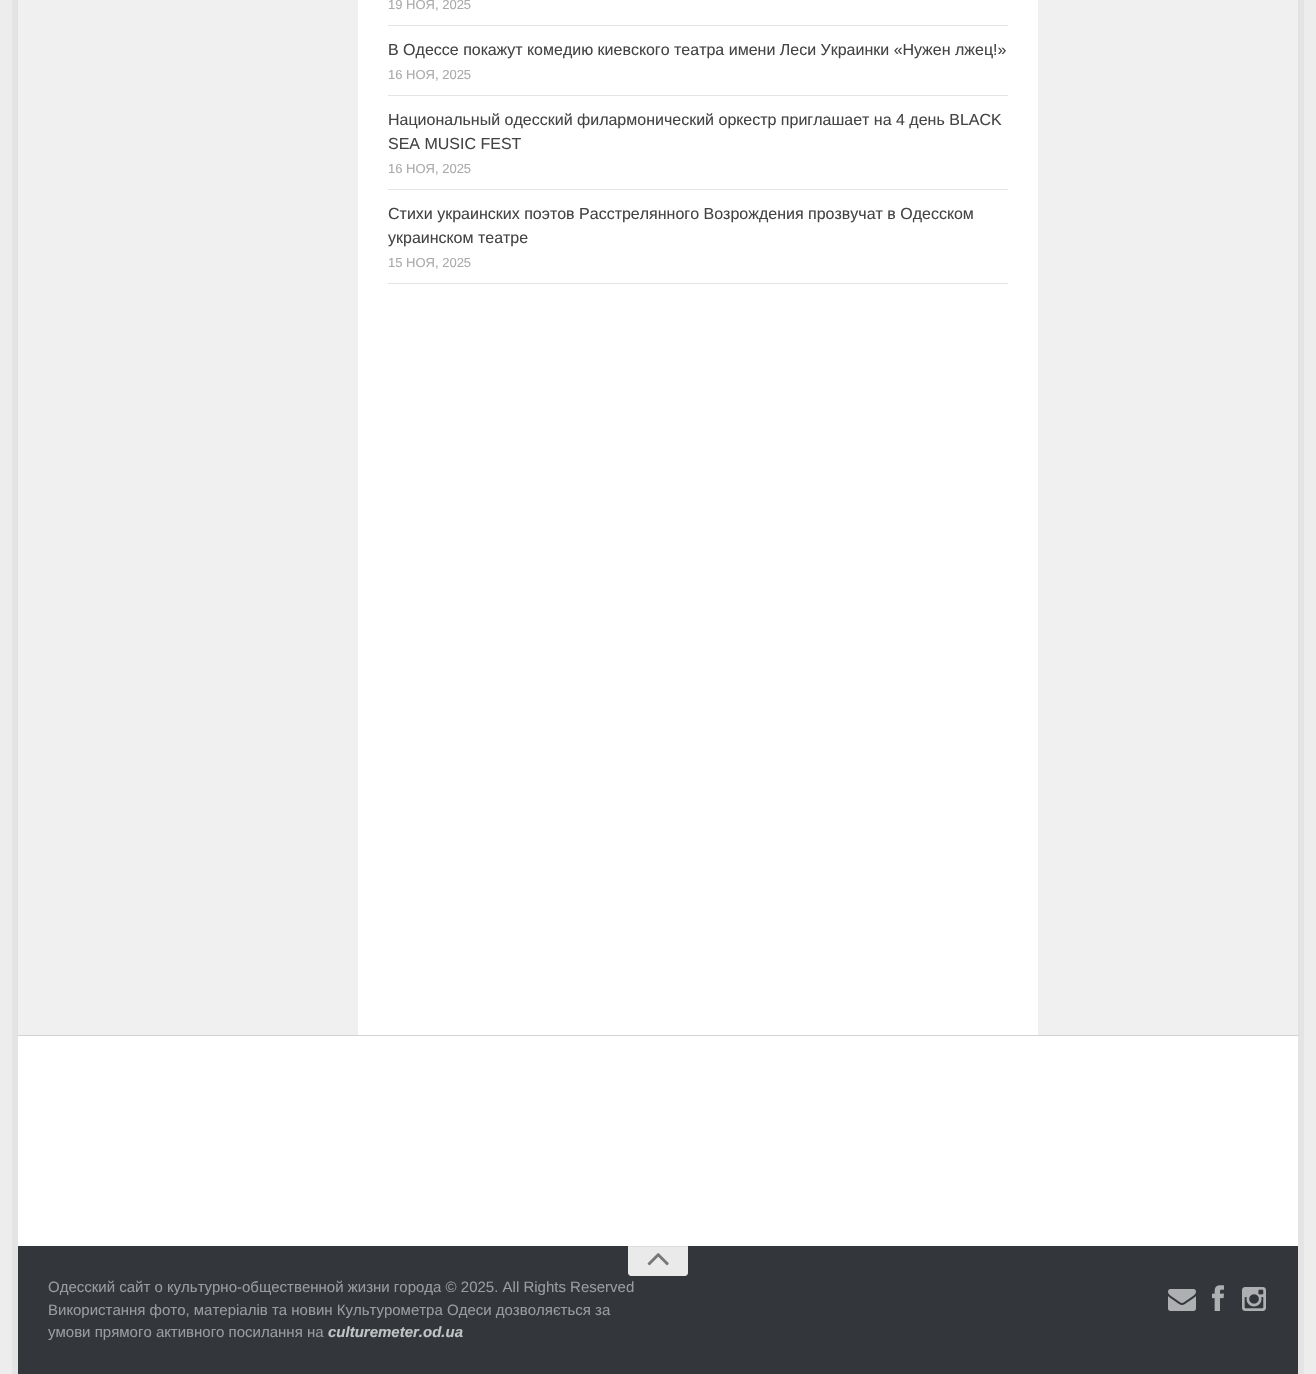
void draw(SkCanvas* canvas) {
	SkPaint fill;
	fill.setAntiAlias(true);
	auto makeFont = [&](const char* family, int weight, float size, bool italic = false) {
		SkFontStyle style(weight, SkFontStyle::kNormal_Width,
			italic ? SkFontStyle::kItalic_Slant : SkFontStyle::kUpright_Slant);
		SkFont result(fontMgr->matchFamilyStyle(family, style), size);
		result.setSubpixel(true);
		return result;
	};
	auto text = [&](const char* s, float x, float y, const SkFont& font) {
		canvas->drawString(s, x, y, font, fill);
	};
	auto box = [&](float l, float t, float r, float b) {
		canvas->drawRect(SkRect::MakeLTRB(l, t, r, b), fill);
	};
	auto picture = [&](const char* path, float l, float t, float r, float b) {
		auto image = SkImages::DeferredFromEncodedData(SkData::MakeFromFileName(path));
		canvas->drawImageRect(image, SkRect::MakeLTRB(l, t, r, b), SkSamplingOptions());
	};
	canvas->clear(0xFFEDEDED);
	fill.setColor(0xFFE4E4E4);
	box(12, 0, 18, 1374);
	box(1298, 0, 1304, 1374);
	fill.setColor(0xFFEAEAEA);
	box(18, 1035, 1298, 1036);
	fill.setColor(0x1A000000);
	fill.setMaskFilter(SkMaskFilter::MakeBlur(kNormal_SkBlurStyle, 0.5f));
	canvas->drawRect(SkRect::MakeLTRB(18, -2, 1298, 1036), fill);
	fill.setMaskFilter(nullptr);
	fill.setColor(0xFFFFFFFF);
	box(358, 0, 1038, 1035);
	fill.setColor(0xFFF0F0F0);
	box(1038, 0, 1298, 1035);
	box(18, 0, 358, 1035);
	fill.setColor(0xFFE4E4E4);
	box(388, 25, 1008, 26);
	box(388, 95, 1008, 96);
	box(388, 189, 1008, 190);
	box(388, 283, 1008, 284);
	fill.setColor(0xFFFFFFFF);
	box(18, 1036, 1298, 1246);
	fill.setColor(0xFF33363B);
	box(18, 1246, 1298, 1374);
	fill.setColor(0xFFEAEAEA);
	canvas->drawPath(SkPathBuilder().moveTo(628, 1246).lineTo(688, 1246).lineTo(688, 1273).cubicTo(688, 1274.5f, 686.5f, 1276, 685, 1276).lineTo(631, 1276).cubicTo(629.5f, 1276, 628, 1274.5f, 628, 1273).close().detach(), fill);
	fill.setColor(0xFFDEDEDE);
	box(628, 1246, 688, 1247);
	picture("image0.png", 647, 1253, 669, 1266);
	picture("image1.png", 1168, 1289, 1196, 1311);
	picture("image2.png", 1212, 1285, 1224, 1311);
	picture("image3.png", 1242, 1287, 1266, 1311);
	auto font1 = makeFont("Liberation Sans", 400, 13);
	fill.setColor(0xFFAAAAAA);
	text("19 НОЯ, 2025", 388, 9, font1);
	auto font2 = makeFont("Liberation Sans", 400, 16);
	fill.setColor(0xFF444444);
	text("В Одессе покажут комедию киевского театра имени Леси Украинки «Нужен лжец!»", 388, 55, font2);
	fill.setColor(0xFFAAAAAA);
	text("16 НОЯ, 2025", 388, 79, font1);
	fill.setColor(0xFF444444);
	text("Национальный одесский филармонический оркестр приглашает на 4 день BLACK", 388, 125, font2);
	text("SEA MUSIC FEST", 388, 149, font2);
	fill.setColor(0xFFAAAAAA);
	text("16 НОЯ, 2025", 388, 173, font1);
	fill.setColor(0xFF444444);
	text("Стихи украинских поэтов Расстрелянного Возрождения прозвучат в Одесском", 388, 219, font2);
	text("украинском театре", 388, 243, font2);
	fill.setColor(0xFFAAAAAA);
	text("15 НОЯ, 2025", 388, 267, font1);
	auto font3 = makeFont("Liberation Sans", 400, 15);
	fill.setColor(0xFF999B9D);
	text("Одесский сайт о культурно-общественной жизни города © 2025. All Rights Reserved", 48, 1292, font3);
	text("Використання фото, матеріалів та новин Культурометра Одеси дозволяється за", 48, 1315, font3);
	text("умови прямого активного посилання на", 48, 1337, font3);
	auto font4 = makeFont("Liberation Sans", 700, 15, true);
	fill.setColor(0xFFC2C3C4);
	text("culturemeter.od.ua", 328, 1337, font4);
}
